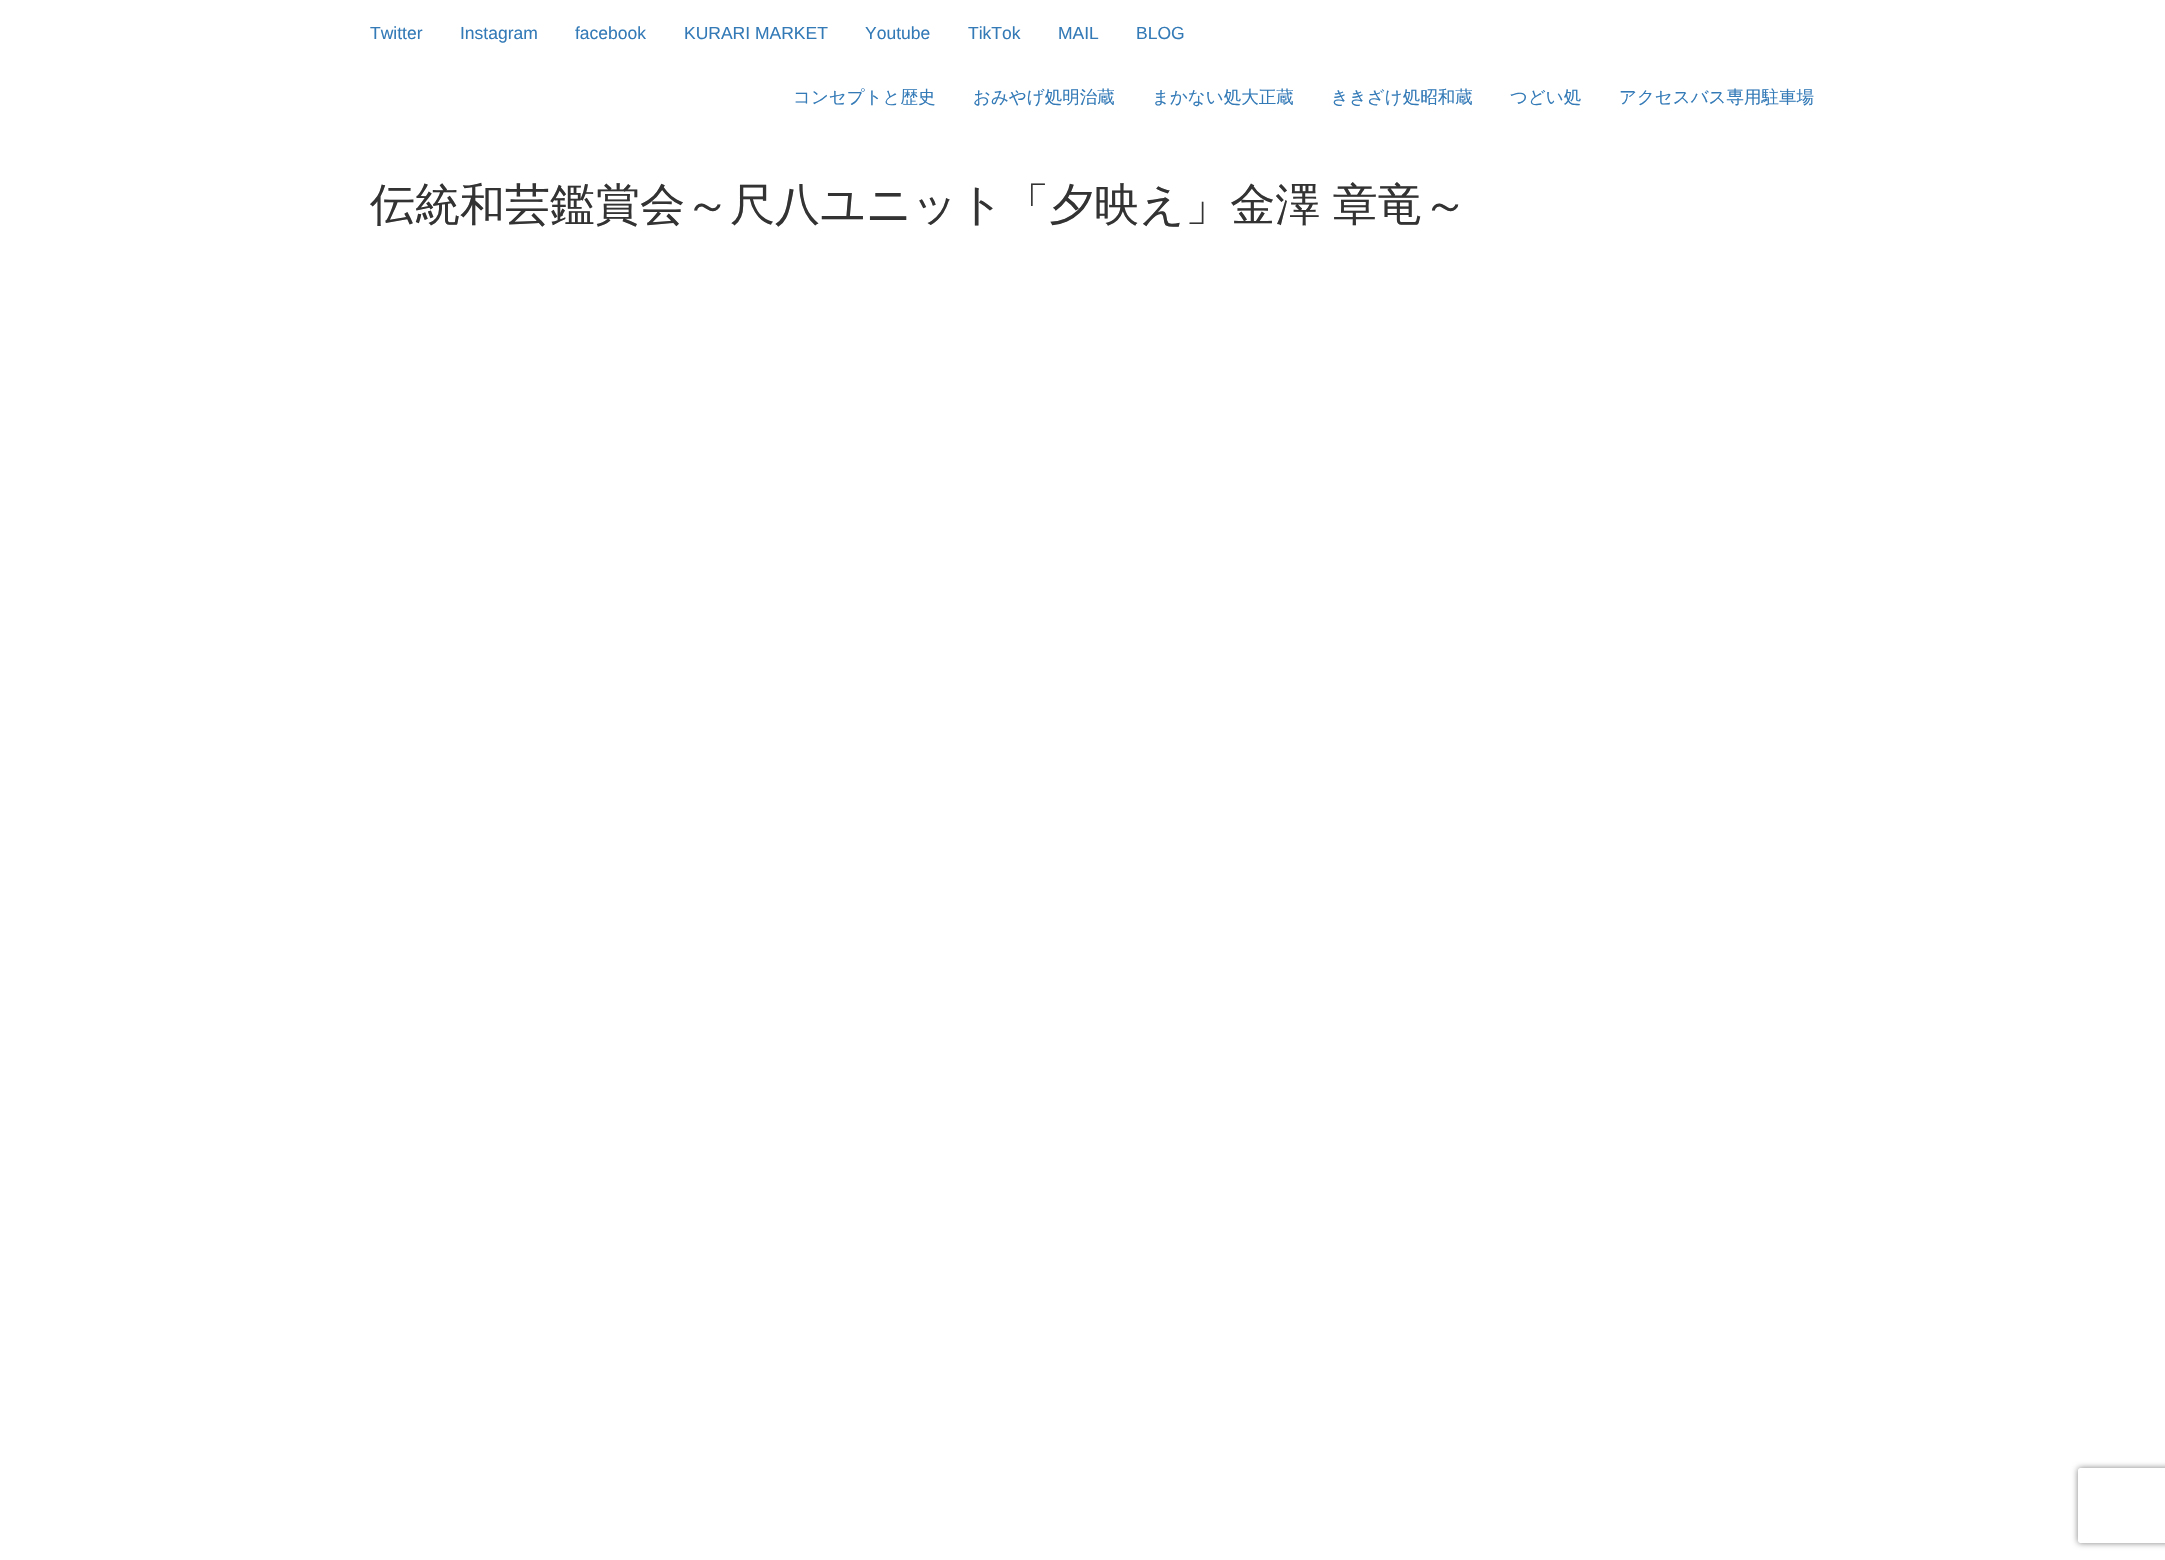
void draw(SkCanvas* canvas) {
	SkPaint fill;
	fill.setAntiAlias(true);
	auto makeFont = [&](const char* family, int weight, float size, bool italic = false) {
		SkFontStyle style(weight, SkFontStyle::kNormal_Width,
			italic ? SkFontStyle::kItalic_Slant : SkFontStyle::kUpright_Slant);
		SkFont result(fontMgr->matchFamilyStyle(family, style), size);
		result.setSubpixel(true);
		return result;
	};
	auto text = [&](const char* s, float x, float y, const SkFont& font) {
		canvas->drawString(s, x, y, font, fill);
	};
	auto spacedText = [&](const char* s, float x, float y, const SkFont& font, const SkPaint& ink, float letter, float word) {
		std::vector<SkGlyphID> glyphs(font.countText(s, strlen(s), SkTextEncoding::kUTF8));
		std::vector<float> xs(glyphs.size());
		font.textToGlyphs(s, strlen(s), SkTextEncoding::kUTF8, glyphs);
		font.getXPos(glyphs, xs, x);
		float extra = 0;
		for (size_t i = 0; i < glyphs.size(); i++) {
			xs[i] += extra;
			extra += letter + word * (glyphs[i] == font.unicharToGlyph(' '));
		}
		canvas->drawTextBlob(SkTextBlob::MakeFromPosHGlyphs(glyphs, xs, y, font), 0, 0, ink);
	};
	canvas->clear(0xFFFFFFFF);
	canvas->save();
	canvas->clipPath(SkPathBuilder(SkPathFillType::kEvenOdd).moveTo(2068, 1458).lineTo(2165, 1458).lineTo(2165, 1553).lineTo(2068, 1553).close().moveTo(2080.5f, 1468).lineTo(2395.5f, 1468).cubicTo(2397, 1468, 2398, 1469, 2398, 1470.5f).lineTo(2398, 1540.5f).cubicTo(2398, 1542, 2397, 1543, 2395.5f, 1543).lineTo(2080.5f, 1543).cubicTo(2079, 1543, 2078, 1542, 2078, 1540.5f).lineTo(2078, 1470.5f).cubicTo(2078, 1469, 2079, 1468, 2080.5f, 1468).close().detach(), true);
	fill.setColor(0xFF808080);
	fill.setMaskFilter(SkMaskFilter::MakeBlur(kNormal_SkBlurStyle, 3));
	canvas->drawRoundRect(SkRect::MakeLTRB(2078, 1468, 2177, 1543), 2.5f, 2.5f, fill);
	fill.setMaskFilter(nullptr);
	canvas->restore();
	auto font1 = makeFont("Liberation Sans", 400, 17.5f);
	fill.setColor(0xFF337AB7);
	text("Twitter", 370, 39, font1);
	text("Instagram", 460, 39, font1);
	text("facebook", 575, 39, font1);
	text("KURARI MARKET", 684, 39, font1);
	text("Youtube", 865, 39, font1);
	text("TikTok", 968, 39, font1);
	text("MAIL", 1058, 39, font1);
	text("BLOG", 1136, 39, font1);
	auto font2 = makeFont("WenQuanYi Zen Hei", 500, 17.5f);
	text("コンセプトと歴史", 793, 103, font2);
	text("おみやげ処明治蔵", 973, 103, font2);
	text("まかない処大正蔵", 1152, 103, font2);
	text("ききざけ処昭和蔵", 1331, 103, font2);
	text("つどい処", 1510, 103, font2);
	text("アクセスバス専用駐車場", 1619, 103, font2);
	auto font3 = makeFont("WenQuanYi Zen Hei", 500, 45);
	fill.setColor(0xFF333333);
	spacedText("伝統和芸鑑賞会～尺八ユニット「夕映え」金澤 章竜～", 370, 220, font3, fill, 0, -1);
}
